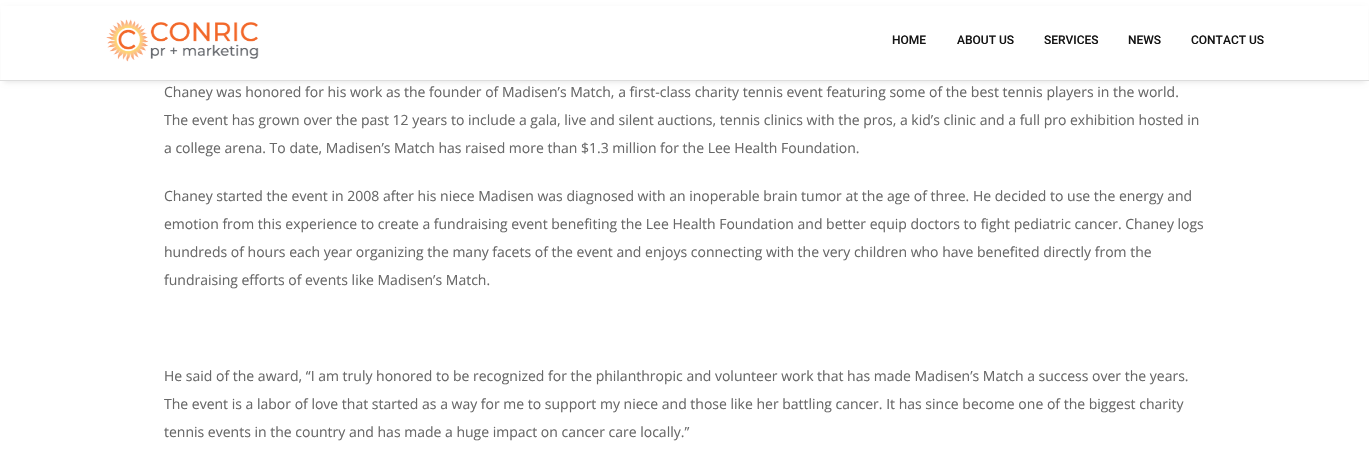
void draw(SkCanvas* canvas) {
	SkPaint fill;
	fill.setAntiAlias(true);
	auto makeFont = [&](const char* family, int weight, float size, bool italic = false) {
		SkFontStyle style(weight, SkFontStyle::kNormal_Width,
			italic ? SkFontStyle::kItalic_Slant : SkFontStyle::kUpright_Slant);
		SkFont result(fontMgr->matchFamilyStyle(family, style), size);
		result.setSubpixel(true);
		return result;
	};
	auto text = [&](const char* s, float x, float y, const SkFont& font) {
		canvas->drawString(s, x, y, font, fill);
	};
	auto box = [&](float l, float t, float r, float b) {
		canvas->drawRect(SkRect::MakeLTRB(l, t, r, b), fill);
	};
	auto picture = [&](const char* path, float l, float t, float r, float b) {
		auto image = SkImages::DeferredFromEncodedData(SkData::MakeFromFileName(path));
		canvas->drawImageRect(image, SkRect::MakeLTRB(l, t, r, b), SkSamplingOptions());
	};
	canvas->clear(0xFFFFFFFF);
	fill.setColor(0x1A000000);
	fill.setMaskFilter(SkMaskFilter::MakeBlur(kNormal_SkBlurStyle, 2.5f));
	canvas->drawRect(SkRect::MakeLTRB(4, 9, 1365, 82), fill);
	fill.setMaskFilter(nullptr);
	fill.setColor(0xFFFFFFFF);
	box(1, 6, 1368, 80);
	fill.setColor(0xFFDDDDDD);
	box(0, 80, 1369, 81);
	picture("image0.png", 106, 19, 259, 62);
	auto font1 = makeFont("Roboto", 500, 12);
	fill.setColor(0xFF151515);
	text("HOME", 892, 44, font1);
	text("ABOUT US", 957, 44, font1);
	text("SERVICES", 1044, 44, font1);
	text("NEWS", 1128, 44, font1);
	text("CONTACT US", 1191, 44, font1);
	auto font2 = makeFont("Open Sans", 400, 14);
	fill.setColor(0xFF686868);
	text("Chaney was honored for his work as the founder of Madisen’s Match, a first-class charity tennis event featuring some of the best tennis players in the world.", 164, 97, font2);
	text("The event has grown over the past 12 years to include a gala, live and silent auctions, tennis clinics with the pros, a kid’s clinic and a full pro exhibition hosted in", 164, 125, font2);
	text("a college arena. To date, Madisen’s Match has raised more than $1.3 million for the Lee Health Foundation.", 164, 153, font2);
	text("Chaney started the event in 2008 after his niece Madisen was diagnosed with an inoperable brain tumor at the age of three. He decided to use the energy and", 164, 201, font2);
	text("emotion from this experience to create a fundraising event benefiting the Lee Health Foundation and better equip doctors to fight pediatric cancer. Chaney logs", 164, 229, font2);
	text("hundreds of hours each year organizing the many facets of the event and enjoys connecting with the very children who have benefited directly from the", 164, 257, font2);
	text("fundraising efforts of events like Madisen’s Match.", 164, 285, font2);
	text("He said of the award, “I am truly honored to be recognized for the philanthropic and volunteer work that has made Madisen’s Match a success over the years.", 164, 381, font2);
	text("The event is a labor of love that started as a way for me to support my niece and those like her battling cancer. It has since become one of the biggest charity", 164, 409, font2);
	text("tennis events in the country and has made a huge impact on cancer care locally.”", 164, 437, font2);
}
